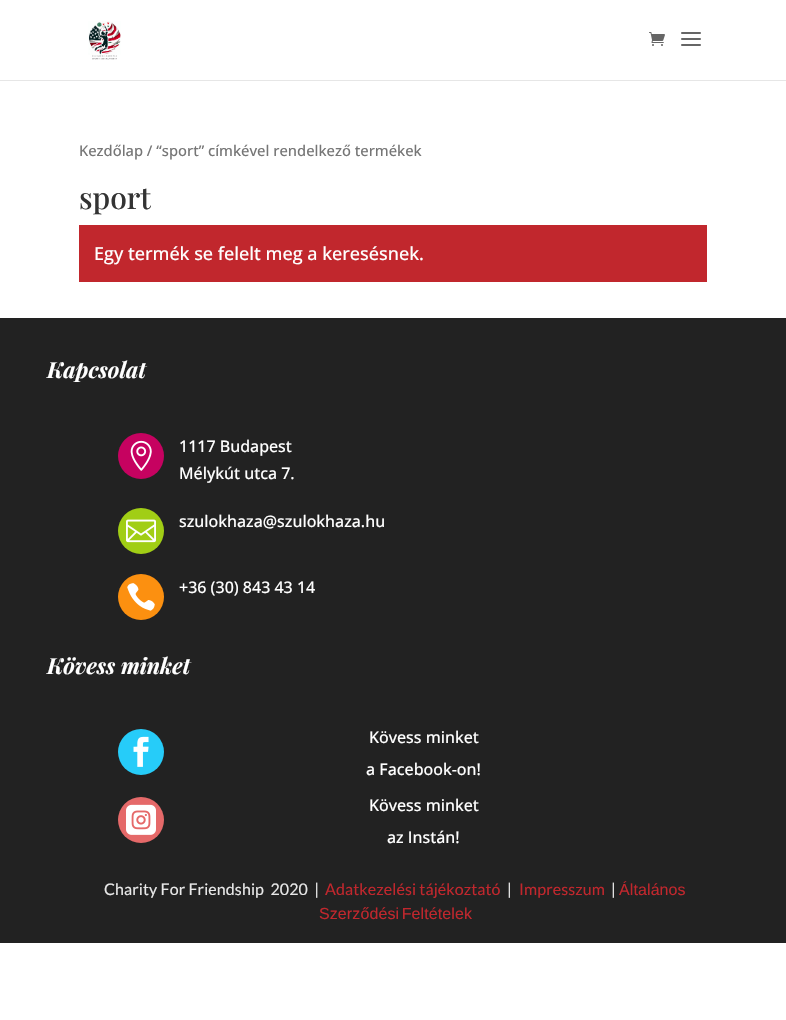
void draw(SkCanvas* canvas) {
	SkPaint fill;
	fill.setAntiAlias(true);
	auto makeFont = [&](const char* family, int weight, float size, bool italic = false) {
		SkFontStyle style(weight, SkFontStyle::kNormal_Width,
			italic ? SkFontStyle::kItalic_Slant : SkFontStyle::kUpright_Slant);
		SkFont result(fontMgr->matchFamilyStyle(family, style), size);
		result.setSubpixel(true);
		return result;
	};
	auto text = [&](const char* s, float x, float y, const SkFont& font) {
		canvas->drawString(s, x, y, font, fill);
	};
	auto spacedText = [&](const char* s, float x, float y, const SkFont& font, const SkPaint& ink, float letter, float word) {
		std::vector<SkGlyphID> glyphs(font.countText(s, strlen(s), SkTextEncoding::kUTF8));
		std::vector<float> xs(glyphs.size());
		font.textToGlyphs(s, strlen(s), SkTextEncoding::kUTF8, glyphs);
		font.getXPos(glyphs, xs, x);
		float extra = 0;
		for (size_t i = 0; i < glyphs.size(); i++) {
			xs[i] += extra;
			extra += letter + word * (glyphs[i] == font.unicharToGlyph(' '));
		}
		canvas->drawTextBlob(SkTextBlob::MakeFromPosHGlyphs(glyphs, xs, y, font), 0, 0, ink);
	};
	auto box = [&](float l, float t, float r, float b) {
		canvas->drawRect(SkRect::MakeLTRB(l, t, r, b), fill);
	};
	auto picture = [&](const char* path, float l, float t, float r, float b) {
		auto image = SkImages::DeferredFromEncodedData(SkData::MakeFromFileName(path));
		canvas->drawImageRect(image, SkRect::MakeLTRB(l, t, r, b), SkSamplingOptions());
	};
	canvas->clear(0xFFFFFFFF);
	fill.setColor(0xFFE6E6E6);
	box(0, 80, 786, 81);
	picture("image0.png", 88, 21, 121, 60);
	picture("image1.png", 649, 32, 665, 46);
	picture("image2.png", 681, 32, 701, 46);
	fill.setColor(0xFFC1272D);
	box(79, 225, 707, 282);
	fill.setColor(0xFF222222);
	box(0, 318, 786, 943);
	fill.setColor(0xFFC60260);
	canvas->drawCircle(141, 456, 23, fill);
	picture("image3.png", 130, 440, 152, 471);
	fill.setColor(0xFFA1CE15);
	canvas->drawCircle(141, 531, 23, fill);
	picture("image4.png", 126, 519, 156, 543);
	fill.setColor(0xFFFC9010);
	canvas->drawCircle(141, 597, 23, fill);
	picture("image5.png", 127, 583, 155, 611);
	fill.setColor(0xFF26CCF9);
	canvas->drawCircle(141, 752, 23, fill);
	picture("image6.png", 133, 736, 149, 767);
	fill.setColor(0xFFE56969);
	canvas->drawCircle(141, 820, 23, fill);
	picture("image7.png", 126, 804, 156, 835);
	auto font1 = makeFont("Open Sans", 500, 14.75f);
	fill.setColor(0xFF767676);
	text("Kezdőlap / “sport” címkével rendelkező termékek", 79, 156, font1);
	auto font2 = makeFont("Playfair Display", 500, 30);
	fill.setColor(0xFF333333);
	text("sport", 79, 209, font2);
	auto font3 = makeFont("Open Sans", 500, 18);
	fill.setColor(0xFFFFFFFF);
	text("Egy termék se felelt meg a keresésnek.", 94, 260, font3);
	auto font4 = makeFont("Playfair Display", 700, 22, true);
	text("Kapcsolat", 47, 378, font4);
	auto font5 = makeFont("Open Sans", 500, 16);
	text("1117 Budapest", 179, 452, font5);
	text("Mélykút utca 7.", 179, 479, font5);
	text("szulokhaza@szulokhaza.hu", 179, 527, font5);
	text("+36 (30) 843 43 14", 179, 593, font5);
	text("Kövess minket", 47, 674, font4);
	text("Kövess minket", 369, 743, font5);
	text("a Facebook-on!", 366, 775, font5);
	text("Kövess minket", 369, 811, font5);
	text("az Instán!", 387, 843, font5);
	auto font6 = makeFont("Lato", 400, 16);
	fill.setColor(0xFFE8E8E8);
	spacedText("Charity For Friendship  2020  |", 104, 895, font6, fill, 0.1f, 0);
	fill.setColor(0xFFC1272D);
	spacedText("Adatkezelési tájékoztató", 325, 895, font6, fill, 0.1f, 0);
	fill.setColor(0xFFE8E8E8);
	spacedText("|", 507, 895, font6, fill, 0.1f, 0);
	fill.setColor(0xFFC1272D);
	spacedText("Impresszum", 519, 895, font6, fill, 0.1f, 0);
	fill.setColor(0xFFE8E8E8);
	spacedText("|", 611, 895, font6, fill, 0.1f, 0);
	auto font7 = makeFont("Liberation Sans", 400, 16);
	fill.setColor(0xFFC1272D);
	spacedText("Általános", 619, 895, font7, fill, 0.1f, 0);
	spacedText("Szerződési Feltételek", 319, 919, font7, fill, 0.1f, -2);
}
